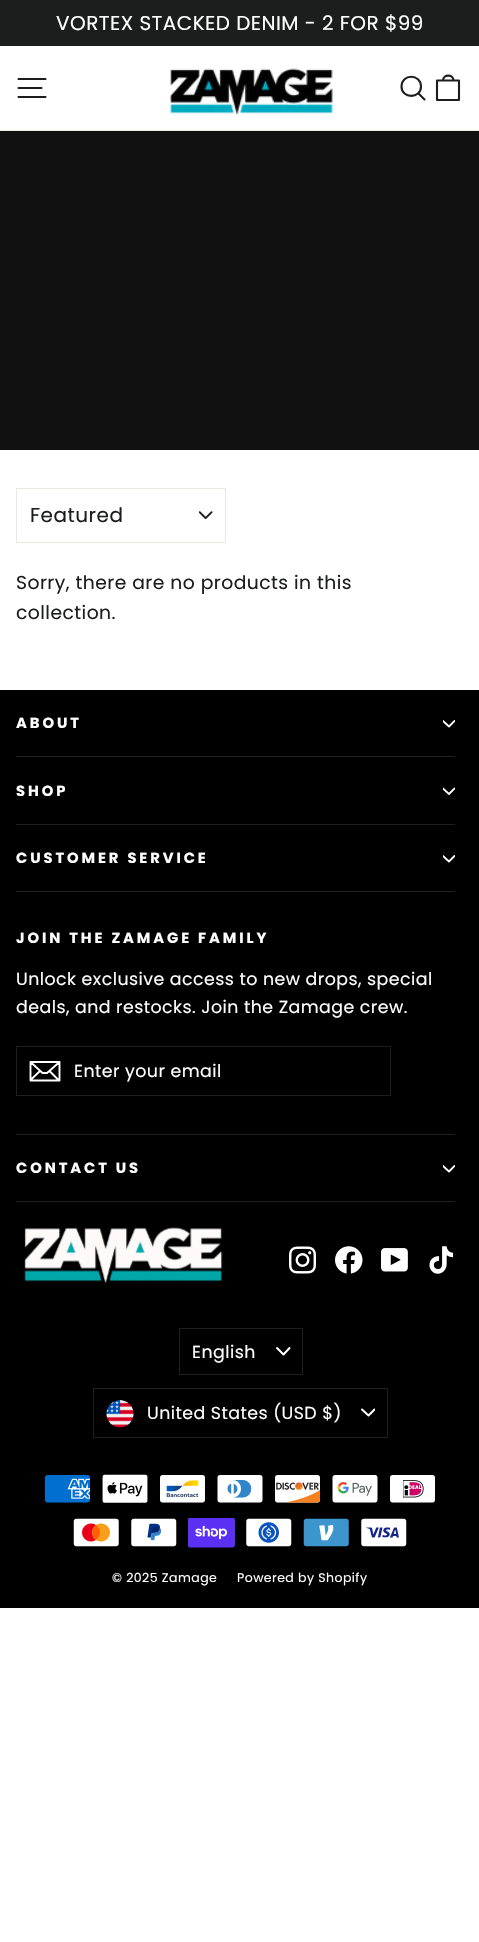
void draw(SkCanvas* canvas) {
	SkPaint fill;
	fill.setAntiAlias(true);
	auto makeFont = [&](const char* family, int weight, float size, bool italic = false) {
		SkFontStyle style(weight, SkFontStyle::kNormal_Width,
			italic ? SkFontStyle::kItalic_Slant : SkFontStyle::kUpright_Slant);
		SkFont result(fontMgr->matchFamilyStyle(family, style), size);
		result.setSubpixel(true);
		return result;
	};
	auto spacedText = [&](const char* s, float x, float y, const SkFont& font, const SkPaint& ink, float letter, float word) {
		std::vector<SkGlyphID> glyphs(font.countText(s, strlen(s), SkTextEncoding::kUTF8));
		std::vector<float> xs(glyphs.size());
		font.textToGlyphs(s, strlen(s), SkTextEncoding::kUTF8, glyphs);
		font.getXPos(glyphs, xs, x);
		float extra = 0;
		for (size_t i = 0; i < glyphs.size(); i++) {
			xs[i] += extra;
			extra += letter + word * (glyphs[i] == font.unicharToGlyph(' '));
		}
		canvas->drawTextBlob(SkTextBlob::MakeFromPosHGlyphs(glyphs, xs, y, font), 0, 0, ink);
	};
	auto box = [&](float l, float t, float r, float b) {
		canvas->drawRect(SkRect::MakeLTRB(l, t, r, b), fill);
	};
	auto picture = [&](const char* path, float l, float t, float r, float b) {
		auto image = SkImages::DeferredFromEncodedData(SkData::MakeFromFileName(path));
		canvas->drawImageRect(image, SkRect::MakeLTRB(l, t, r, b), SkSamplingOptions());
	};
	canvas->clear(0xFFFFFFFF);
	fill.setColor(0xFF1C1D1D);
	box(0, 0, 479, 46);
	fill.setColor(0xFFE8E8E1);
	box(0, 130, 479, 131);
	fill.setStyle(SkPaint::kStroke_Style);
	fill.setStrokeWidth(2.1f);
	fill.setStrokeCap(SkPaint::kRound_Cap);
	fill.setStrokeJoin(SkPaint::kRound_Join);
	fill.setColor(0xFF1C1D1D);
	canvas->drawPath(SkPathBuilder().moveTo(18.5f, 79).lineTo(45.5f, 79).moveTo(18.5f, 88).lineTo(41.5f, 88).moveTo(18.5f, 97).lineTo(45.5f, 97).detach(), fill);
	picture("image0.png", 170, 68, 333, 115);
	canvas->drawPath(SkPathBuilder().moveTo(421, 86.5f).cubicTo(421, 99, 401.5f, 99, 401.5f, 86.5f).cubicTo(401.5f, 73.5f, 421, 73.5f, 421, 86.5f).close().moveTo(424.5f, 99.5f).lineTo(418.5f, 93.5f).detach(), fill);
	canvas->drawPath(SkPathBuilder().moveTo(437, 80.5f).lineTo(459, 80.5f).lineTo(459, 100).lineTo(437, 100).close().moveTo(443, 80.5f).cubicTo(443, 74, 453.5f, 74, 453.5f, 80.5f).detach(), fill);
	fill.setStyle(SkPaint::kFill_Style);
	fill.setColor(0xFF111111);
	box(0, 131, 479, 450);
	picture("image1.png", 199, 511, 213, 519);
	fill.setStyle(SkPaint::kStroke_Style);
	fill.setStrokeWidth(1);
	fill.setStrokeCap(SkPaint::kButt_Cap);
	fill.setStrokeJoin(SkPaint::kMiter_Join);
	fill.setColor(0xFFE8E8E1);
	canvas->drawRect(SkRect::MakeLTRB(16.5f, 488.5f, 225.5f, 542.5f), fill);
	fill.setStyle(SkPaint::kFill_Style);
	fill.setColor(0xFF000000);
	box(0, 690, 479, 1608);
	canvas->save();
	canvas->clipRect(SkRect::MakeLTRB(443, 718, 455, 730));
	fill.setStyle(SkPaint::kStroke_Style);
	fill.setStrokeWidth(1.8f);
	fill.setStrokeCap(SkPaint::kRound_Cap);
	fill.setStrokeJoin(SkPaint::kRound_Join);
	fill.setColor(0xFFFFFFFF);
	canvas->drawPath(SkPathBuilder().moveTo(443, 721).lineTo(449, 726.5f).lineTo(454.5f, 721).detach(), fill);
	canvas->restore();
	fill.setStyle(SkPaint::kFill_Style);
	fill.setColor(0xFF1F1F1F);
	box(16, 756, 455, 757);
	canvas->save();
	canvas->clipRect(SkRect::MakeLTRB(443, 785, 455, 798));
	fill.setStyle(SkPaint::kStroke_Style);
	fill.setColor(0xFFFFFFFF);
	canvas->drawPath(SkPathBuilder().moveTo(443, 788.5f).lineTo(449, 794).lineTo(454.5f, 788.5f).detach(), fill);
	canvas->restore();
	fill.setStyle(SkPaint::kFill_Style);
	fill.setColor(0xFF1F1F1F);
	box(16, 824, 455, 825);
	canvas->save();
	canvas->clipRect(SkRect::MakeLTRB(443, 853, 455, 865));
	fill.setStyle(SkPaint::kStroke_Style);
	fill.setColor(0xFFFFFFFF);
	canvas->drawPath(SkPathBuilder().moveTo(443, 856).lineTo(449, 861.5f).lineTo(454.5f, 856).detach(), fill);
	canvas->restore();
	fill.setStyle(SkPaint::kFill_Style);
	fill.setColor(0xFF1F1F1F);
	box(16, 891, 455, 892);
	fill.setStyle(SkPaint::kStroke_Style);
	fill.setStrokeWidth(1);
	fill.setStrokeCap(SkPaint::kButt_Cap);
	fill.setStrokeJoin(SkPaint::kMiter_Join);
	canvas->drawRect(SkRect::MakeLTRB(16.5f, 1046.5f, 390.5f, 1095.5f), fill);
	fill.setStrokeWidth(1.9f);
	fill.setStrokeCap(SkPaint::kRound_Cap);
	fill.setStrokeJoin(SkPaint::kRound_Join);
	fill.setColor(0xFFFFFFFF);
	canvas->drawPath(SkPathBuilder().moveTo(59.5f, 1080.5f).lineTo(30.5f, 1080.5f).lineTo(30.5f, 1062).lineTo(59.5f, 1062).close().moveTo(30.5f, 1062).lineTo(42.5f, 1073).lineTo(47, 1073).lineTo(59.5f, 1062).moveTo(40, 1071).lineTo(30.5f, 1080).moveTo(59, 1080.5f).lineTo(49.5f, 1071).detach(), fill);
	fill.setStyle(SkPaint::kFill_Style);
	fill.setColor(0xFF1F1F1F);
	box(16, 1134, 455, 1135);
	canvas->save();
	canvas->clipRect(SkRect::MakeLTRB(443, 1163, 455, 1175));
	fill.setStyle(SkPaint::kStroke_Style);
	fill.setStrokeWidth(1.8f);
	fill.setColor(0xFFFFFFFF);
	canvas->drawPath(SkPathBuilder().moveTo(443, 1166).lineTo(449, 1171.5f).lineTo(454.5f, 1166).detach(), fill);
	canvas->restore();
	fill.setStyle(SkPaint::kFill_Style);
	fill.setColor(0xFF1F1F1F);
	box(16, 1201, 455, 1202);
	picture("image2.png", 24, 1227, 223, 1284);
	picture("image3.png", 289, 1246, 316, 1274);
	picture("image4.png", 335, 1246, 363, 1274);
	picture("image5.png", 381, 1248, 408, 1272);
	picture("image6.png", 429, 1246, 454, 1274);
	fill.setStyle(SkPaint::kStroke_Style);
	fill.setStrokeWidth(1);
	fill.setStrokeCap(SkPaint::kButt_Cap);
	fill.setStrokeJoin(SkPaint::kMiter_Join);
	canvas->drawRect(SkRect::MakeLTRB(179.5f, 1328.5f, 302.5f, 1374.5f), fill);
	fill.setStrokeWidth(2);
	fill.setStrokeCap(SkPaint::kRound_Cap);
	fill.setStrokeJoin(SkPaint::kRound_Join);
	fill.setColor(0xFFFFFFFF);
	canvas->drawPath(SkPathBuilder().moveTo(277, 1348).lineTo(283.5f, 1354.5f).lineTo(289.5f, 1348).detach(), fill);
	fill.setStrokeWidth(1);
	fill.setStrokeCap(SkPaint::kButt_Cap);
	fill.setStrokeJoin(SkPaint::kMiter_Join);
	fill.setColor(0xFF1F1F1F);
	canvas->drawRect(SkRect::MakeLTRB(93.5f, 1388.5f, 387.5f, 1437.5f), fill);
	picture("image7.png", 106, 1400, 134, 1428);
	canvas->save();
	canvas->clipRect(SkRect::MakeLTRB(361, 1406, 375, 1420));
	fill.setStrokeWidth(2);
	fill.setStrokeCap(SkPaint::kRound_Cap);
	fill.setStrokeJoin(SkPaint::kRound_Join);
	fill.setColor(0xFFFFFFFF);
	canvas->drawPath(SkPathBuilder().moveTo(362, 1409.5f).lineTo(368.5f, 1415.5f).lineTo(374.5f, 1409.5f).detach(), fill);
	canvas->restore();
	picture("image8.png", 45, 1475, 90, 1503);
	picture("image9.png", 102, 1474, 148, 1503);
	picture("image10.png", 160, 1475, 205, 1503);
	picture("image11.png", 217, 1475, 263, 1503);
	picture("image12.png", 275, 1475, 321, 1503);
	picture("image13.png", 332, 1475, 378, 1503);
	picture("image14.png", 390, 1475, 435, 1503);
	picture("image15.png", 73, 1518, 119, 1547);
	picture("image16.png", 131, 1518, 177, 1547);
	picture("image17.png", 188, 1518, 235, 1548);
	picture("image18.png", 246, 1518, 292, 1547);
	picture("image19.png", 303, 1518, 349, 1547);
	picture("image20.png", 361, 1518, 407, 1547);
	auto font1 = makeFont("Poppins", 400, 20);
	fill.setStyle(SkPaint::kFill_Style);
	spacedText("VORTEX STACKED DENIM - 2 FOR $99", 56, 30, font1, fill, 0.45f, 0);
	fill.setColor(0xFF1C1D1D);
	spacedText("Featured", 30, 522, font1, fill, 0.5f, 0);
	auto font2 = makeFont("Poppins", 400, 18.75f);
	spacedText("Sorry, there are no products in this", 16, 589, font2, fill, 0.45f, 0);
	spacedText("collection.", 16, 619, font2, fill, 0.45f, 0);
	auto font3 = makeFont("Poppins", 700, 14.75f);
	fill.setColor(0xFFFFFFFF);
	spacedText("ABOUT", 16, 728, font3, fill, 2.9f, 0);
	spacedText("SHOP", 16, 796, font3, fill, 2.9f, 0);
	spacedText("CUSTOMER SERVICE", 16, 863, font3, fill, 2.9f, 0);
	spacedText("JOIN THE ZAMAGE FAMILY", 16, 943, font3, fill, 2.9f, 0);
	auto font4 = makeFont("Poppins", 400, 17.4f);
	spacedText("Unlock exclusive access to new drops, special", 16, 985, font4, fill, 0.45f, 0);
	spacedText("deals, and restocks. Join the Zamage crew.", 16, 1013, font4, fill, 0.45f, 0);
	spacedText("Enter your email", 74, 1077, font4, fill, 0.45f, 0);
	spacedText("CONTACT US", 16, 1173, font3, fill, 2.9f, 0);
	spacedText("English", 192, 1358, font4, fill, 0.45f, 0);
	spacedText("United States (USD $)", 147, 1419, font4, fill, 0.45f, 0);
	auto font5 = makeFont("Poppins", 400, 12.5f);
	spacedText("© 2025 Zamage", 112, 1582, font5, fill, 0.45f, 0);
	spacedText("Powered by Shopify", 237, 1582, font5, fill, 0.45f, 0);
}
